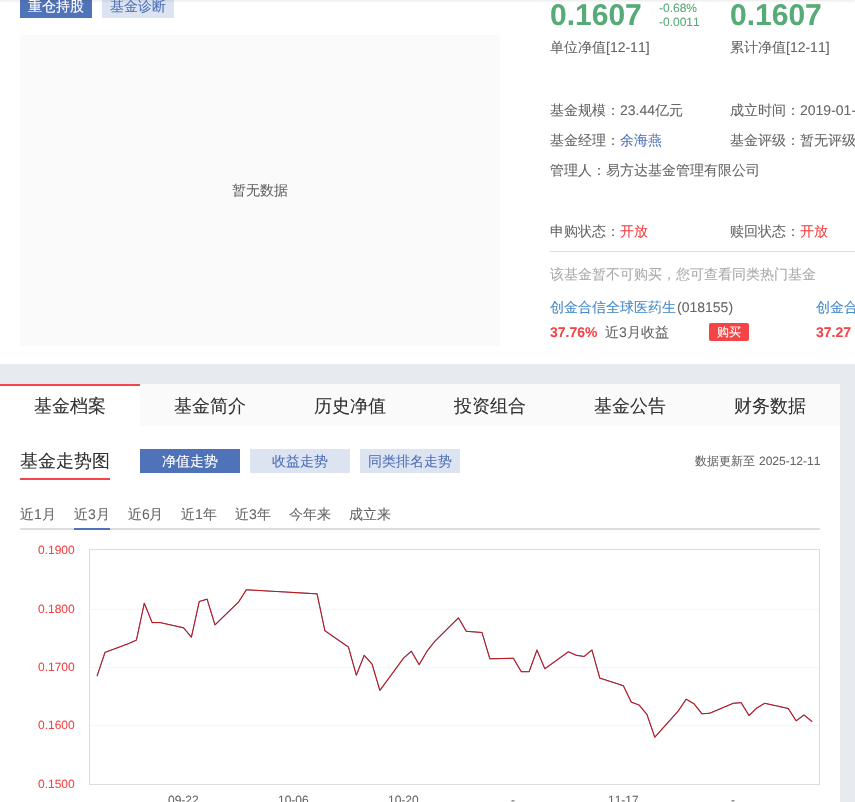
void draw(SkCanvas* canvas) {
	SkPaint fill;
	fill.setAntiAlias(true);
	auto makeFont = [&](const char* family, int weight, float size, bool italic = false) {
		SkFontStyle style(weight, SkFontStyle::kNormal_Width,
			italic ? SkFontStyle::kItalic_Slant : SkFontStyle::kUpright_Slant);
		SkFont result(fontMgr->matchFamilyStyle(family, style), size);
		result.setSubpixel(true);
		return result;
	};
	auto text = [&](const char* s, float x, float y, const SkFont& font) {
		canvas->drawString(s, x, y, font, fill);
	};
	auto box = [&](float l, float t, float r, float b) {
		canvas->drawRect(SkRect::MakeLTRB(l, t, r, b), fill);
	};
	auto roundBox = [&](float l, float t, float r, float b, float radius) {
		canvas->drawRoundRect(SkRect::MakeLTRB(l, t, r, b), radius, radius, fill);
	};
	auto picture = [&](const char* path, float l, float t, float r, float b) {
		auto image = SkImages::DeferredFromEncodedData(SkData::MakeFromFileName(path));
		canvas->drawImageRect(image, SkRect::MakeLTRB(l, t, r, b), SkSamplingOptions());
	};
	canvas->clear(0xFFE7EBEF);
	fill.setColor(0xFFFFFFFF);
	box(0, 0, 855, 364);
	fill.setColor(0xFF5072B8);
	box(20, 0, 92, 18);
	fill.setColor(0xFFDCE3F1);
	box(102, 0, 174, 18);
	fill.setColor(0x1A1A1A1A);
	fill.setMaskFilter(SkMaskFilter::MakeBlur(kNormal_SkBlurStyle, 1.5f));
	canvas->drawRect(SkRect::MakeLTRB(0, -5, 855, 1), fill);
	fill.setMaskFilter(nullptr);
	fill.setColor(0xFFFAFAFA);
	box(20, 35, 500, 346);
	fill.setColor(0xFFDDDDDD);
	box(550, 251, 855, 252);
	fill.setColor(0xFFF44446);
	roundBox(709, 323, 749, 341, 2);
	fill.setColor(0xFFFFFFFF);
	box(0, 426, 840, 802);
	fill.setColor(0xFFFAFAFA);
	box(140, 384, 840, 426);
	fill.setColor(0xFFFFFFFF);
	box(0, 386, 140, 426);
	fill.setColor(0xFFF44446);
	box(0, 384, 140, 386);
	box(20, 478, 110, 480);
	fill.setColor(0xFF5072B8);
	box(140, 449, 240, 473);
	fill.setColor(0xFFDCE3F1);
	box(250, 449, 350, 473);
	box(360, 449, 460, 473);
	fill.setColor(0xFFDDDDDD);
	box(20, 528, 820, 530);
	fill.setColor(0xFF5072B8);
	box(74, 528, 110, 530);
	picture("image0.png", 89, 549, 820, 785);
	auto font1 = makeFont("WenQuanYi Zen Hei", 500, 14);
	fill.setColor(0xFFFFFFFF);
	text("重仓持股", 28, 11, font1);
	fill.setColor(0xFF5072B8);
	text("基金诊断", 110, 11, font1);
	fill.setColor(0xFF666666);
	text("暂无数据", 232, 195, font1);
	auto font2 = makeFont("Liberation Sans", 700, 30);
	fill.setColor(0xFF57AB76);
	text("0.1607", 550, 25, font2);
	auto font3 = makeFont("Liberation Sans", 400, 12);
	text("-0.68%", 659, 12, font3);
	text("-0.0011", 659, 26, font3);
	fill.setColor(0xFF666666);
	text("单位净值", 550, 52, font1);
	auto font4 = makeFont("Liberation Sans", 400, 14);
	text("[12-11]", 606, 52, font4);
	fill.setColor(0xFF57AB76);
	text("0.1607", 730, 25, font2);
	fill.setColor(0xFF666666);
	text("累计净值", 730, 52, font1);
	text("[12-11]", 786, 52, font4);
	text("基金规模：", 550, 115, font1);
	text("23.44", 620, 115, font4);
	text("亿元", 655, 115, font1);
	text("成立时间：", 730, 115, font1);
	text("2019-01-", 800, 115, font4);
	text("基金经理：", 550, 145, font1);
	fill.setColor(0xFF5072B8);
	text("余海燕", 620, 145, font1);
	fill.setColor(0xFF666666);
	text("基金评级：暂无评级", 730, 145, font1);
	text("管理人：易方达基金管理有限公司", 550, 175, font1);
	text("申购状态：", 550, 236, font1);
	fill.setColor(0xFFF44446);
	text("开放", 620, 236, font1);
	fill.setColor(0xFF666666);
	text("赎回状态：", 730, 236, font1);
	fill.setColor(0xFFF44446);
	text("开放", 800, 236, font1);
	fill.setColor(0xFFAAAAAA);
	text("该基金暂不可购买，您可查看同类热门基金", 550, 279, font1);
	fill.setColor(0xFF4489CA);
	text("创金合信全球医药生", 550, 312, font1);
	fill.setColor(0xFF666666);
	text("(018155)", 677, 312, font4);
	auto font5 = makeFont("Liberation Sans", 700, 14);
	fill.setColor(0xFFF44446);
	text("37.76%", 550, 337, font5);
	fill.setColor(0xFF666666);
	text("近", 605, 337, font1);
	text("3", 619, 337, font4);
	text("月收益", 627, 337, font1);
	auto font6 = makeFont("WenQuanYi Zen Hei", 500, 12);
	fill.setColor(0xFFFFFFFF);
	text("购买", 717, 336, font6);
	fill.setColor(0xFF4489CA);
	text("创金合", 816, 312, font1);
	fill.setColor(0xFFF44446);
	text("37.27", 816, 337, font5);
	auto font7 = makeFont("WenQuanYi Zen Hei", 500, 18);
	fill.setColor(0xFF333333);
	text("基金档案", 34, 412, font7);
	text("基金简介", 174, 412, font7);
	text("历史净值", 314, 412, font7);
	text("投资组合", 454, 412, font7);
	text("基金公告", 594, 412, font7);
	text("财务数据", 734, 412, font7);
	text("基金走势图", 20, 467, font7);
	fill.setColor(0xFFFFFFFF);
	text("净值走势", 162, 466, font1);
	fill.setColor(0xFF5072B8);
	text("收益走势", 272, 466, font1);
	text("同类排名走势", 368, 466, font1);
	fill.setColor(0xFF666666);
	text("数据更新至", 695, 465, font6);
	text("2025-12-11", 759, 465, font3);
	text("近", 20, 519, font1);
	text("1", 34, 519, font4);
	text("月", 42, 519, font1);
	text("近", 74, 519, font1);
	text("3", 88, 519, font4);
	text("月", 96, 519, font1);
	text("近", 128, 519, font1);
	text("6", 142, 519, font4);
	text("月", 149, 519, font1);
	text("近", 181, 519, font1);
	text("1", 195, 519, font4);
	text("年", 203, 519, font1);
	text("近", 235, 519, font1);
	text("3", 249, 519, font4);
	text("年", 257, 519, font1);
	text("今年来", 289, 519, font1);
	text("成立来", 349, 519, font1);
	fill.setColor(0xFFF44446);
	text("0.1900", 38, 554, font3);
	text("0.1800", 38, 613, font3);
	text("0.1700", 38, 671, font3);
	text("0.1600", 38, 729, font3);
	text("0.1500", 38, 788, font3);
	fill.setColor(0xFF666666);
	text("09-22", 168, 804, font3);
	text("10-06", 278, 804, font3);
	text("10-20", 388, 804, font3);
	text("-", 511, 804, font3);
	text("11-17", 608, 804, font3);
	text("-", 731, 804, font3);
}
